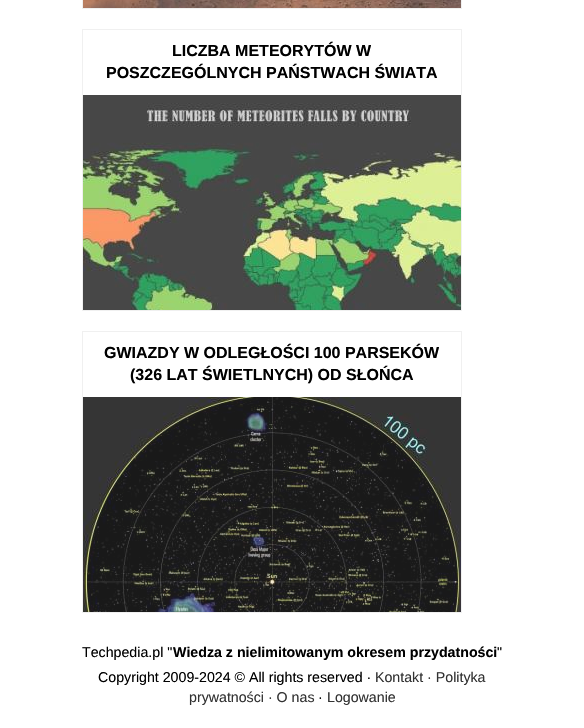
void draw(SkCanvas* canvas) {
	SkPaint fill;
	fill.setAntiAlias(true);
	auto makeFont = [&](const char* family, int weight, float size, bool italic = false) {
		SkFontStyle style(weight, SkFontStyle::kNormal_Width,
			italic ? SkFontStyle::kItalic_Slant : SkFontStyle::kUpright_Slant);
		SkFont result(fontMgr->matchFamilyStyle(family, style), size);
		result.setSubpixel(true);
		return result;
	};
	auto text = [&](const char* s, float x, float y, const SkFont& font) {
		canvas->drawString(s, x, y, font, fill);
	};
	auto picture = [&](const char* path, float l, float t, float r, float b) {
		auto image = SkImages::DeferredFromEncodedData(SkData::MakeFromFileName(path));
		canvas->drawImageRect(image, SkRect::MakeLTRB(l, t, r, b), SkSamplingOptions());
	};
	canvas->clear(0xFFFFFFFF);
	fill.setStyle(SkPaint::kStroke_Style);
	fill.setStrokeWidth(1);
	fill.setColor(0xFFF0F0F0);
	canvas->drawRect(SkRect::MakeLTRB(82.5f, -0.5f, 461.5f, 8.5f), fill);
	picture("image0.png", 83, 0, 461, 8);
	canvas->drawRect(SkRect::MakeLTRB(82.5f, 29.5f, 461.5f, 310.5f), fill);
	picture("image1.png", 83, 95, 461, 310);
	canvas->drawRect(SkRect::MakeLTRB(82.5f, 331.5f, 461.5f, 612.5f), fill);
	picture("image2.png", 83, 397, 461, 612);
	auto font1 = makeFont("Liberation Sans", 700, 16);
	fill.setStyle(SkPaint::kFill_Style);
	fill.setColor(0xFF000000);
	text("LICZBA METEORYTÓW W", 172, 56, font1);
	text("POSZCZEGÓLNYCH PAŃSTWACH ŚWIATA", 106, 78, font1);
	text("GWIAZDY W ODLEGŁOŚCI 100 PARSEKÓW", 104, 358, font1);
	text("(326 LAT ŚWIETLNYCH) OD SŁOŃCA", 130, 380, font1);
	auto font2 = makeFont("Liberation Sans", 400, 14.2f);
	text("Techpedia.pl \"", 82, 657, font2);
	auto font3 = makeFont("Liberation Sans", 700, 14.2f);
	text("Wiedza z nielimitowanym okresem przydatności", 173, 657, font3);
	text("\"", 497, 657, font2);
	text("Copyright 2009-2024 © All rights reserved ·", 98, 682, font2);
	fill.setColor(0xFF323232);
	text("Kontakt · Polityka", 375, 682, font2);
	text("prywatności · O nas", 189, 702, font2);
	fill.setColor(0xFF000000);
	text("·", 318, 702, font2);
	fill.setColor(0xFF323232);
	text("Logowanie", 327, 702, font2);
}
